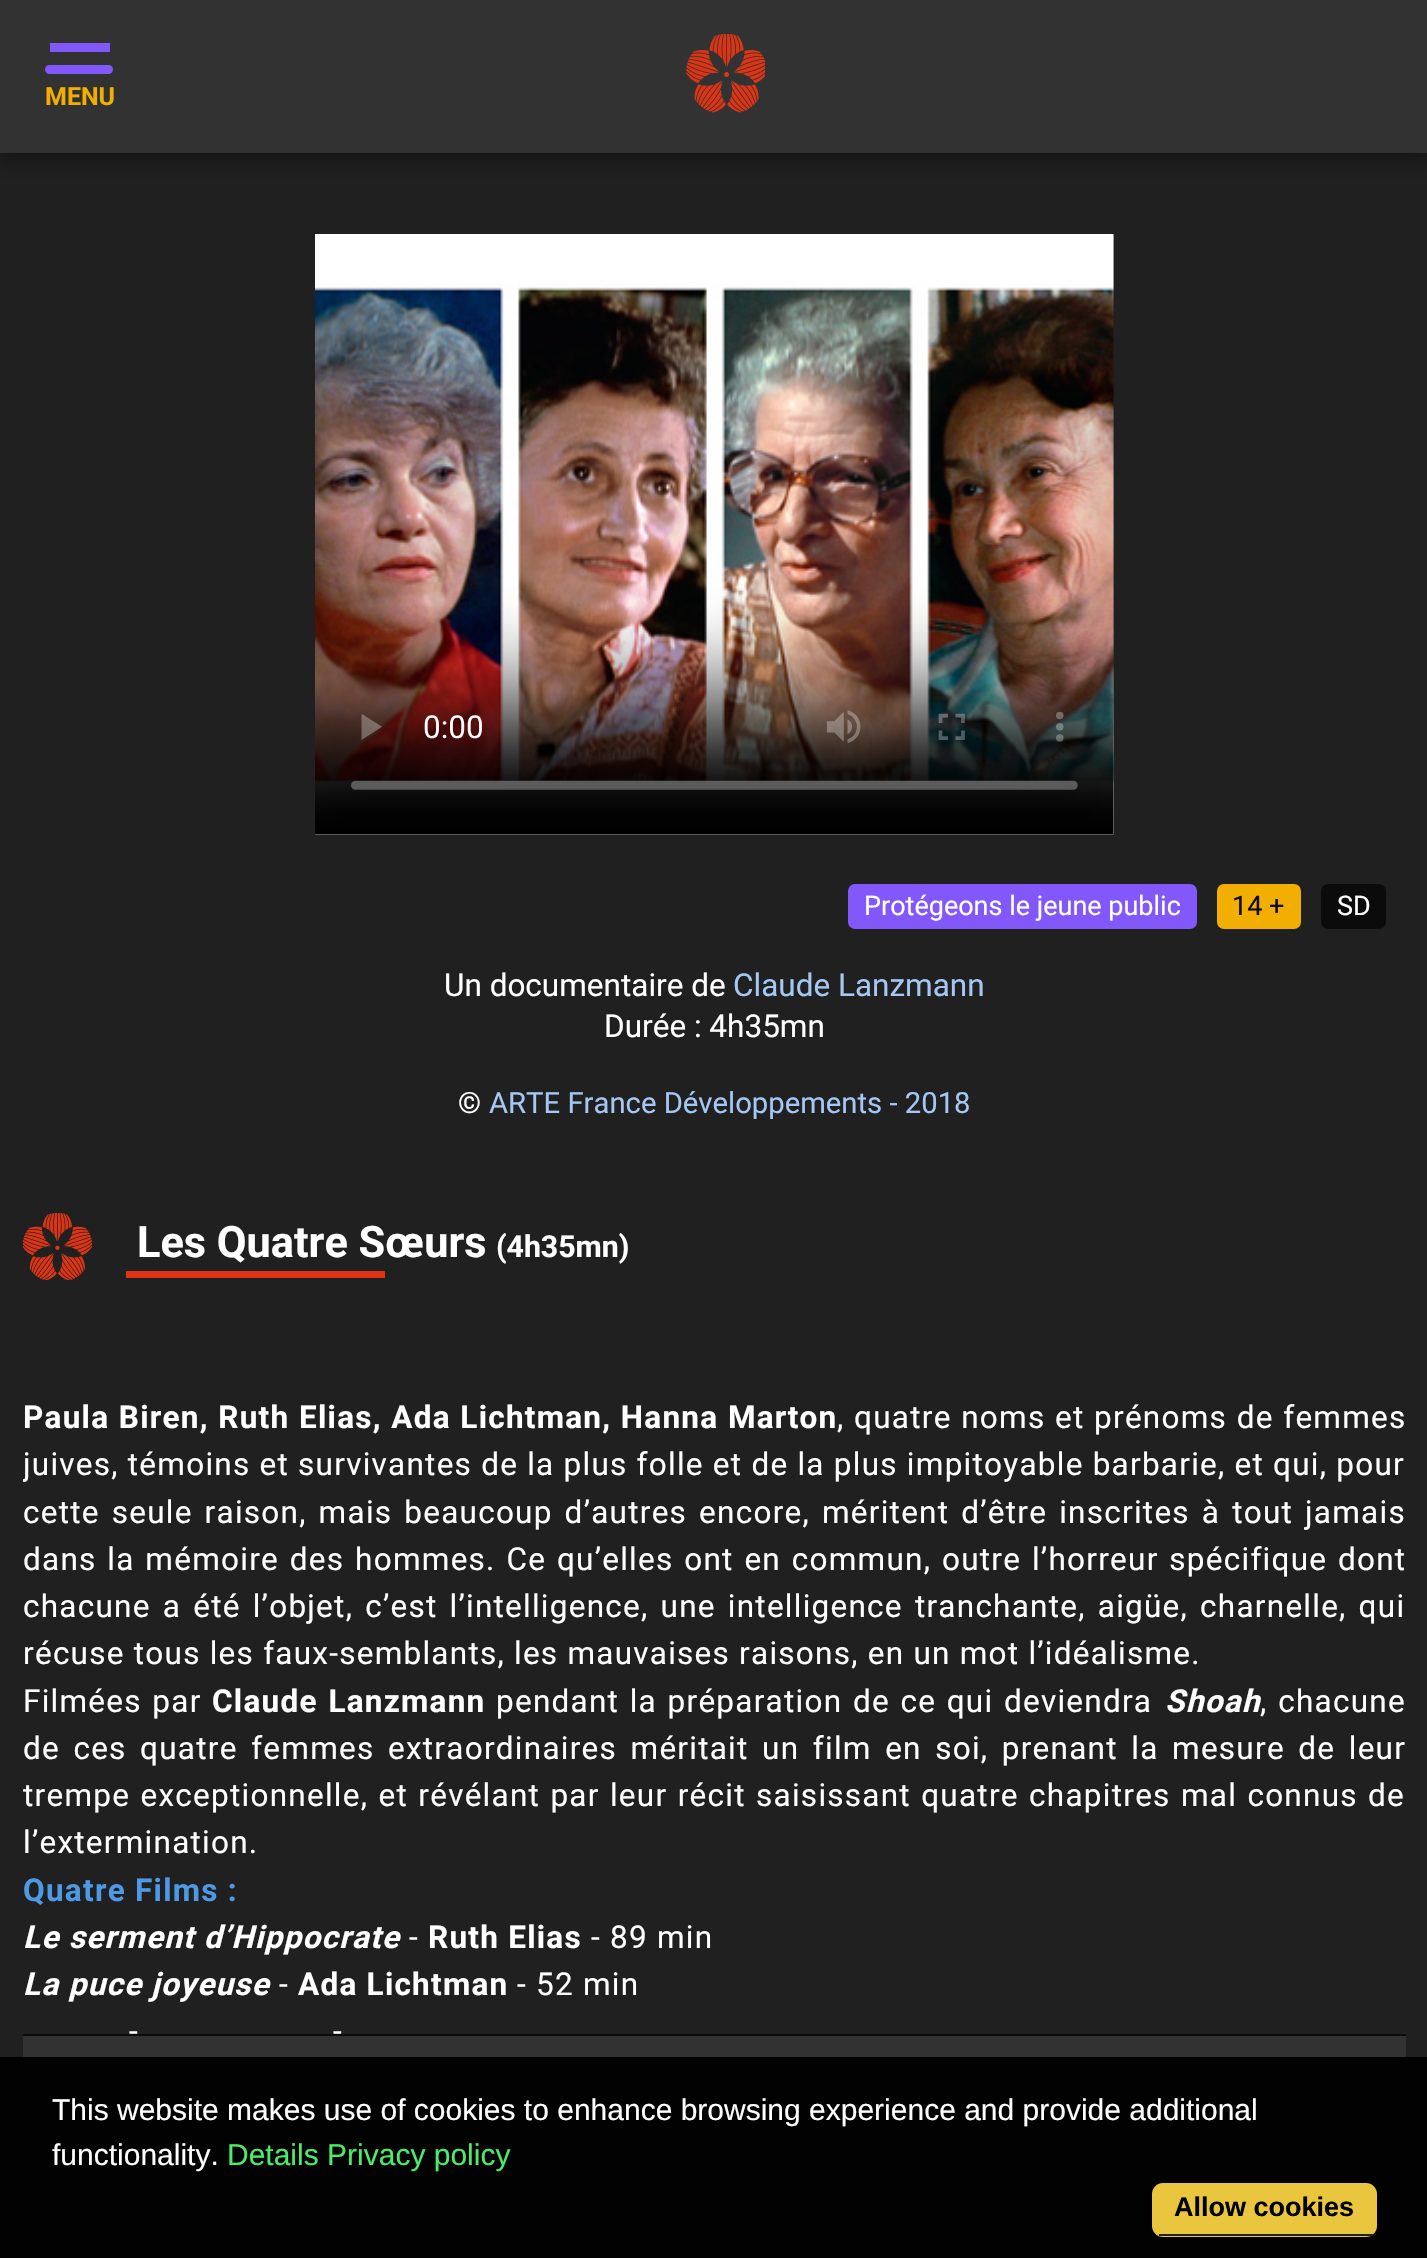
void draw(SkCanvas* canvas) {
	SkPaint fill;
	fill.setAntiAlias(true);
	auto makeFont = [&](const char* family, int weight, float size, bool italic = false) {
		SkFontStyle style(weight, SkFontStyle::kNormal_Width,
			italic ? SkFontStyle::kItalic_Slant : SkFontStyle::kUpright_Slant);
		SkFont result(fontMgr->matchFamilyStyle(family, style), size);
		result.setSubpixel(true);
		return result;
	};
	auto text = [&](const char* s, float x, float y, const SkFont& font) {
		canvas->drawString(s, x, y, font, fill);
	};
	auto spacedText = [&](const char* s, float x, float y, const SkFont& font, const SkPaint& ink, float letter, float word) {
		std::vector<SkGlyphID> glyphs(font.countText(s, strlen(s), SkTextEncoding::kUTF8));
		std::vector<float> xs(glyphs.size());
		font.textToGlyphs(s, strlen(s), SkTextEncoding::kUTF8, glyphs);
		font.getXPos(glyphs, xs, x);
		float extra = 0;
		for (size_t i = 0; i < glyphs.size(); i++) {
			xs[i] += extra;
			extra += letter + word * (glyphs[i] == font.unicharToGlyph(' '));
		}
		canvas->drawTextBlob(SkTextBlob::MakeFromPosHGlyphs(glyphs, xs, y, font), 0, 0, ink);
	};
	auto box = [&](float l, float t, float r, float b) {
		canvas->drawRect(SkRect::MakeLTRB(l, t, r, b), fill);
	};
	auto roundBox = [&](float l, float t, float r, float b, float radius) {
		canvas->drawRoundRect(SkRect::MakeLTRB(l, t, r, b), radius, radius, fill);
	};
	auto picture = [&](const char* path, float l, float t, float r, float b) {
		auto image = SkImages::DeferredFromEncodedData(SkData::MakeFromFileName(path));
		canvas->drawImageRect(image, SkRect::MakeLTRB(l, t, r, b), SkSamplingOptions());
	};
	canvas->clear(0xFF202020);
	fill.setColor(0xFF020202);
	box(0, 2057, 1427, 2258);
	fill.setColor(0x59000000);
	fill.setMaskFilter(SkMaskFilter::MakeBlur(kNormal_SkBlurStyle, 10));
	canvas->drawRect(SkRect::MakeLTRB(-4, 0, 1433, 162), fill);
	fill.setMaskFilter(nullptr);
	fill.setColor(0xFF323232);
	box(0, 0, 1427, 153);
	fill.setColor(0xFF8258FA);
	box(50, 43, 110, 52);
	roundBox(45, 65, 113, 74, 4.5f);
	picture("image0.png", 686, 34, 765, 113);
	picture("image1.png", 315, 234, 1114, 835);
	roundBox(848, 884, 1197, 929, 7);
	fill.setColor(0xFFF2AF01);
	roundBox(1217, 884, 1301, 929, 7);
	fill.setColor(0xFF0B0B0B);
	roundBox(1321, 884, 1386, 929, 7);
	picture("image2.png", 23, 1213, 92, 1280);
	fill.setColor(0xFFDE3414);
	box(126, 1271, 385, 1278);
	fill.setColor(0xFF323232);
	box(23, 2036, 1406, 2057);
	fill.setColor(0xFF0B0B0B);
	box(23, 2034, 1406, 2036);
	fill.setColor(0xFFEAC53E);
	roundBox(1152, 2183, 1377, 2237, 11);
	fill.setColor(0xFF222222);
	box(1159, 2234, 1373, 2236);
	auto font1 = makeFont("Roboto", 700, 25);
	fill.setColor(0xFFF2AF01);
	text("MENU", 45, 105, font1);
	auto font2 = makeFont("Roboto", 400, 27);
	fill.setColor(0xFFFFFFFF);
	text("Protégeons le jeune public", 864, 915, font2);
	fill.setColor(0xFF0B0B0B);
	text("14 +", 1232, 915, font2);
	fill.setColor(0xFFFFFFFF);
	text("SD", 1337, 915, font2);
	auto font3 = makeFont("Roboto", 400, 31.5f);
	text("Un documentaire de", 444, 996, font3);
	fill.setColor(0xFFA5C7F3);
	text("Claude Lanzmann", 733, 996, font3);
	fill.setColor(0xFFFFFFFF);
	text("Durée : 4h35mn", 604, 1037, font3);
	auto font4 = makeFont("Roboto", 400, 29.25f);
	text("©", 458, 1113, font4);
	fill.setColor(0xFFA5C7F3);
	text("ARTE France Développements - 2018", 489, 1113, font4);
	auto font5 = makeFont("Roboto", 700, 43.25f);
	fill.setColor(0xFFFFFFFF);
	text("Les Quatre Sœurs", 137, 1257, font5);
	auto font6 = makeFont("Roboto", 700, 30.25f);
	text("(4h35mn)", 496, 1257, font6);
	auto font7 = makeFont("Roboto", 700, 31.5f);
	spacedText("Paula Biren, Ruth Elias, Ada Lichtman, Hanna Marton", 23, 1428, font7, fill, 1.25f, 0.5f);
	spacedText(", quatre noms et prénoms de femmes", 837, 1428, font3, fill, 1.25f, 0.5f);
	canvas->save();
	canvas->clipRect(SkRect::MakeLTRB(23, 1359, 1406, 2034));
	spacedText("juives, témoins et survivantes de la plus folle et de la plus impitoyable barbarie, et qui, pour", 23, 1475, font3, fill, 1.25f, 0);
	canvas->restore();
	spacedText("cette seule raison, mais beaucoup d’autres encore, méritent d’être inscrites à tout jamais", 23, 1523, font3, fill, 1.25f, 2.9f);
	spacedText("dans la mémoire des hommes. Ce qu’elles ont en commun, outre l’horreur spécifique dont", 23, 1570, font3, fill, 1.25f, 1.7f);
	spacedText("chacune a été l’objet, c’est l’intelligence, une intelligence tranchante, aigüe, charnelle, qui", 23, 1617, font3, fill, 1.25f, 3);
	spacedText("récuse tous les faux-semblants, les mauvaises raisons, en un mot l’idéalisme.", 23, 1664, font3, fill, 1.25f, 0);
	spacedText("Filmées par", 23, 1712, font3, fill, 1.25f, 1.5f);
	spacedText("Claude Lanzmann", 212, 1712, font7, fill, 1.25f, 1.7f);
	spacedText("pendant la préparation de ce qui deviendra", 496, 1712, font3, fill, 1.25f, 1.5f);
	auto font8 = makeFont("Roboto", 700, 31.5f, true);
	spacedText("Shoah", 1165, 1712, font8, fill, 1.25f, 0);
	spacedText(", chacune", 1260, 1712, font3, fill, 1.25f, 1.7f);
	spacedText("de ces quatre femmes extraordinaires méritait un film en soi, prenant la mesure de leur", 23, 1759, font3, fill, 1.25f, 4.4f);
	canvas->save();
	canvas->clipRect(SkRect::MakeLTRB(23, 1359, 1406, 2034));
	spacedText("trempe exceptionnelle, et révélant par leur récit saisissant quatre chapitres mal connus de", 23, 1806, font3, fill, 1.25f, 1.25f);
	canvas->restore();
	spacedText("l’extermination.", 23, 1853, font3, fill, 1.25f, 0);
	fill.setColor(0xFF4D99E6);
	spacedText("Quatre Films :", 23, 1901, font7, fill, 1.25f, 0);
	fill.setColor(0xFFFFFFFF);
	spacedText("Le serment d’Hippocrate", 23, 1948, font8, fill, 1.25f, 0);
	spacedText("-", 409, 1948, font3, fill, 1.25f, 0);
	spacedText("Ruth Elias", 428, 1948, font7, fill, 1.25f, 0);
	spacedText("- 89 min", 591, 1948, font3, fill, 1.25f, 0);
	spacedText("La puce joyeuse", 23, 1995, font8, fill, 1.25f, 0);
	spacedText("-", 279, 1995, font3, fill, 1.25f, 0);
	spacedText("Ada Lichtman", 298, 1995, font7, fill, 1.25f, 0);
	spacedText("- 52 min", 517, 1995, font3, fill, 1.25f, 0);
	spacedText("-", 129, 2042, font3, fill, 1.25f, 0);
	spacedText("-", 333, 2042, font3, fill, 1.25f, 0);
	auto font9 = makeFont("Liberation Sans", 400, 30);
	text("This website makes use of cookies to enhance browsing experience and provide additional", 52, 2120, font9);
	text("functionality.", 52, 2165, font9);
	fill.setColor(0xFF4BEC69);
	text("Details Privacy policy", 227, 2165, font9);
	auto font10 = makeFont("Liberation Sans", 700, 27);
	fill.setColor(0xFF000000);
	text("Allow cookies", 1174, 2216, font10);
}
